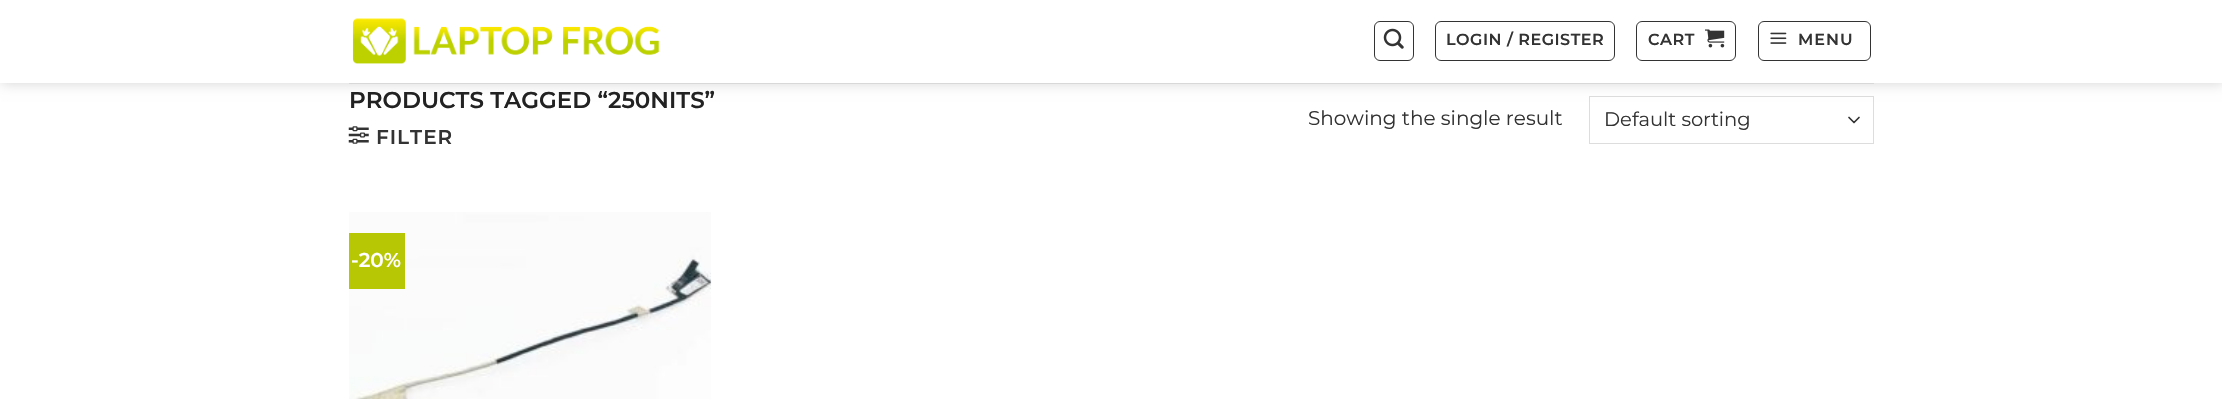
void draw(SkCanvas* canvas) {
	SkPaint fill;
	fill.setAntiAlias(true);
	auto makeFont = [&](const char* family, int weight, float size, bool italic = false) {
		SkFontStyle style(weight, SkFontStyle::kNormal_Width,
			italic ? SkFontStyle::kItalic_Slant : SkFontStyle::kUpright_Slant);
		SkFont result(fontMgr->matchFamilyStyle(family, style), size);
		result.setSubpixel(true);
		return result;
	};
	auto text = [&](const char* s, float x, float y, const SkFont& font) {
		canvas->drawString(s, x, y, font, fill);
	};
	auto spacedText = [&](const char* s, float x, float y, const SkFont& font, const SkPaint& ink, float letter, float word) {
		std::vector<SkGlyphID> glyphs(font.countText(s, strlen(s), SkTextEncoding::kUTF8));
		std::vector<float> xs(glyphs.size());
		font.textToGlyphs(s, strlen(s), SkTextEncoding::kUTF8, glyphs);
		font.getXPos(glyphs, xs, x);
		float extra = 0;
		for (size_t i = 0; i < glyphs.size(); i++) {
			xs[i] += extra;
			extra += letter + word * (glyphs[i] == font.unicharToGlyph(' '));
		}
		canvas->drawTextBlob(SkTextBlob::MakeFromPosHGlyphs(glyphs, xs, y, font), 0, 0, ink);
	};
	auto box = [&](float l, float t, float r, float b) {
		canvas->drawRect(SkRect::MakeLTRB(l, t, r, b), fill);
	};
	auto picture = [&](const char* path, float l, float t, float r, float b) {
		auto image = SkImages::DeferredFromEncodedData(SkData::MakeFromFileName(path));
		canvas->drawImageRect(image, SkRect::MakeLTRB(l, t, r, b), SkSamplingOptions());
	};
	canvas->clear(0xFFFFFFFF);
	fill.setStyle(SkPaint::kStroke_Style);
	fill.setStrokeWidth(1.7f);
	fill.setStrokeCap(SkPaint::kRound_Cap);
	fill.setStrokeJoin(SkPaint::kRound_Join);
	fill.setColor(0xFF333333);
	canvas->drawPath(SkPathBuilder().moveTo(1849, 117.5f).lineTo(1854, 122.5f).lineTo(1859, 117.5f).detach(), fill);
	fill.setStrokeWidth(1);
	fill.setStrokeCap(SkPaint::kButt_Cap);
	fill.setStrokeJoin(SkPaint::kMiter_Join);
	fill.setColor(0xFFDDDDDD);
	canvas->drawRect(SkRect::MakeLTRB(1589.5f, 96.5f, 1873.5f, 143.5f), fill);
	canvas->save();
	canvas->clipPath(SkPathBuilder(SkPathFillType::kEvenOdd).moveTo(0, 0).lineTo(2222, 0).lineTo(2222, 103).lineTo(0, 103).close().moveTo(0, 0).lineTo(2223, 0).lineTo(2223, 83).lineTo(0, 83).close().detach(), true);
	fill.setStyle(SkPaint::kFill_Style);
	fill.setColor(0x26000000);
	fill.setMaskFilter(SkMaskFilter::MakeBlur(kNormal_SkBlurStyle, 6));
	canvas->drawRect(SkRect::MakeLTRB(1, 1, 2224, 84), fill);
	fill.setMaskFilter(nullptr);
	canvas->restore();
	picture("image0.png", 352, 18, 660, 64);
	fill.setStyle(SkPaint::kStroke_Style);
	fill.setColor(0xFF333333);
	canvas->drawRoundRect(SkRect::MakeLTRB(1374.5f, 21.5f, 1413.5f, 60.5f), 5.5f, 5.5f, fill);
	picture("image1.png", 1383, 28, 1404, 49);
	canvas->drawRoundRect(SkRect::MakeLTRB(1435.5f, 21.5f, 1614.5f, 60.5f), 5.5f, 5.5f, fill);
	canvas->drawRoundRect(SkRect::MakeLTRB(1636.5f, 21.5f, 1735.5f, 60.5f), 5.5f, 5.5f, fill);
	picture("image2.png", 1705, 29, 1725, 48);
	canvas->drawRoundRect(SkRect::MakeLTRB(1758.5f, 21.5f, 1870.5f, 60.5f), 5.5f, 5.5f, fill);
	picture("image3.png", 1770, 32, 1787, 44);
	fill.setStyle(SkPaint::kFill_Style);
	fill.setColor(0xFFD8D8D8);
	box(349, 83, 1874, 84);
	picture("image4.png", 348, 126, 369, 144);
	picture("image5.png", 349, 212, 712, 399);
	fill.setColor(0xFFB7C704);
	box(349, 233, 405, 289);
	auto font1 = makeFont("Montserrat", 600, 16);
	fill.setColor(0xFF333333);
	spacedText("LOGIN / REGISTER", 1446, 45, font1, fill, 0.5f, 0);
	spacedText("CART", 1648, 45, font1, fill, 0.5f, 0);
	spacedText("MENU", 1798, 45, font1, fill, 1, 0);
	auto font2 = makeFont("Montserrat", 600, 23);
	fill.setColor(0xFF222222);
	text("PRODUCTS TAGGED “250NITS”", 349, 108, font2);
	auto font3 = makeFont("Montserrat", 600, 20);
	fill.setColor(0xFF333333);
	spacedText("FILTER", 376, 144, font3, fill, 1, 0);
	auto font4 = makeFont("Montserrat", 400, 20);
	text("Showing the single result", 1308, 125, font4);
	auto font5 = makeFont("Montserrat", 400, 19.5f);
	text("Default sorting", 1604, 126, font5);
	fill.setColor(0xFFFFFFFF);
	text("-20%", 351, 267, font3);
}
